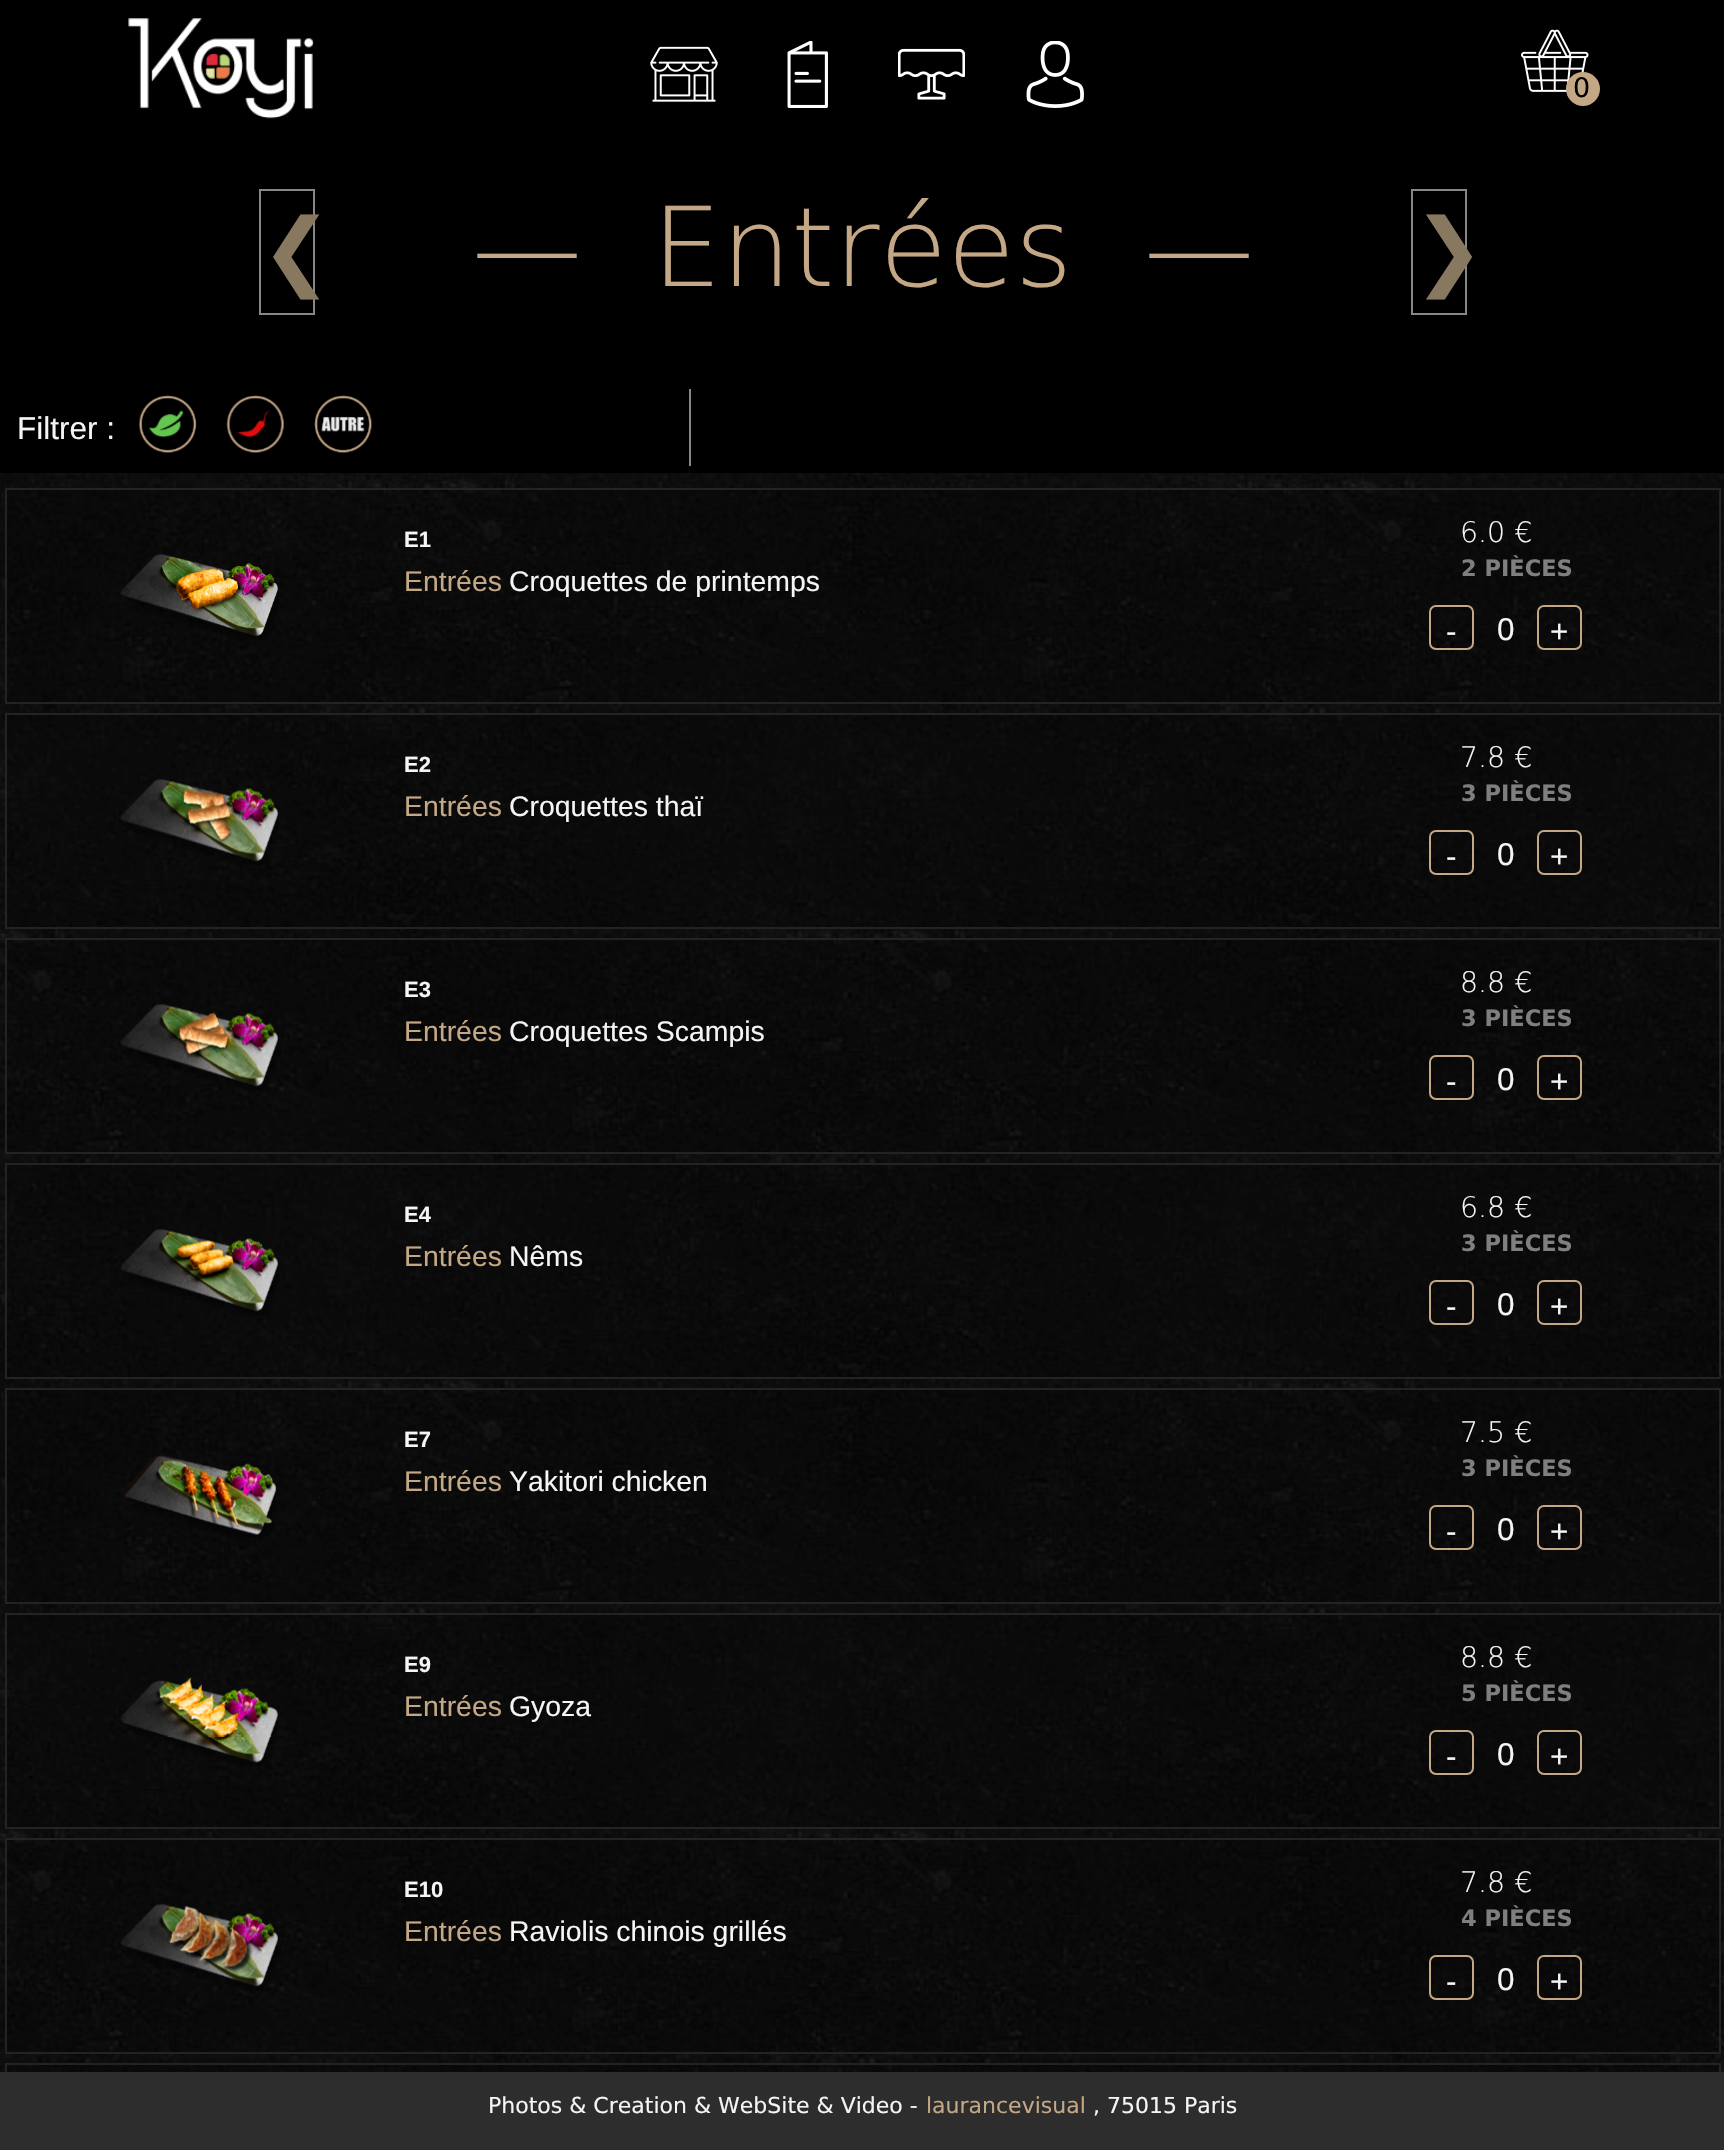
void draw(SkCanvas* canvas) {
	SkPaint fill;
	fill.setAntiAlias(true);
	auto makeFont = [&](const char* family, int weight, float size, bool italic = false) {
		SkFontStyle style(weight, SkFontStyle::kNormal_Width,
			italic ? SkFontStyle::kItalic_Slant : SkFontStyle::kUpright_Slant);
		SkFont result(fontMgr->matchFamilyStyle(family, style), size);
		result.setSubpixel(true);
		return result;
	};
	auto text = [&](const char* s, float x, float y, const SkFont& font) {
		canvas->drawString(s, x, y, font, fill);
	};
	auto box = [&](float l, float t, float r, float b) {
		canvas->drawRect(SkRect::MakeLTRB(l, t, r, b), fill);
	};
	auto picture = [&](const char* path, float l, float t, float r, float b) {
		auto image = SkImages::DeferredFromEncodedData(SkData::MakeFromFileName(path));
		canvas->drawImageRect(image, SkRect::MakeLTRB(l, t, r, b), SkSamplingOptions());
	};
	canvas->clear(0xFFFFFFFF);
	picture("image0.png", 0, 473, 1724, 2072);
	fill.setColor(0xFF000000);
	box(0, 0, 1724, 473);
	picture("image1.png", 128, 18, 314, 119);
	picture("image2.png", 650, 46, 718, 102);
	picture("image3.png", 787, 41, 828, 108);
	picture("image4.png", 898, 48, 965, 100);
	picture("image5.png", 1026, 41, 1084, 108);
	picture("image6.png", 1521, 29, 1589, 92);
	fill.setColor(0xFFC4A886);
	canvas->drawCircle(1583, 89, 17, fill);
	fill.setStyle(SkPaint::kStroke_Style);
	fill.setStrokeWidth(2);
	fill.setColor(0xFF878787);
	canvas->drawRect(SkRect::MakeLTRB(260, 190, 314, 314), fill);
	canvas->drawRect(SkRect::MakeLTRB(1412, 190, 1466, 314), fill);
	fill.setStyle(SkPaint::kFill_Style);
	box(689, 389, 691, 466);
	picture("image7.png", 138, 395, 197, 454);
	picture("image8.png", 226, 395, 285, 454);
	picture("image9.png", 314, 395, 373, 454);
	fill.setColor(0x4D000000);
	box(7, 490, 1292, 702);
	fill.setColor(0xFF232323);
	box(5, 488, 1721, 490);
	box(5, 702, 1292, 704);
	box(5, 488, 7, 704);
	picture("image10.png", 120, 554, 278, 640);
	fill.setColor(0x4D000000);
	box(1292, 490, 1719, 702);
	fill.setColor(0xFF232323);
	box(1719, 488, 1721, 704);
	box(1292, 702, 1721, 704);
	fill.setStyle(SkPaint::kStroke_Style);
	fill.setColor(0xFFC4A886);
	canvas->drawRoundRect(SkRect::MakeLTRB(1430, 606, 1473, 649), 6, 6, fill);
	canvas->drawRoundRect(SkRect::MakeLTRB(1538, 606, 1581, 649), 6, 6, fill);
	fill.setStyle(SkPaint::kFill_Style);
	fill.setColor(0x4D000000);
	box(7, 715, 1292, 927);
	fill.setColor(0xFF232323);
	box(5, 713, 1721, 715);
	box(5, 927, 1292, 929);
	box(5, 713, 7, 929);
	picture("image11.png", 120, 779, 279, 865);
	fill.setColor(0x4D000000);
	box(1292, 715, 1719, 927);
	fill.setColor(0xFF232323);
	box(1719, 713, 1721, 929);
	box(1292, 927, 1721, 929);
	fill.setStyle(SkPaint::kStroke_Style);
	fill.setColor(0xFFC4A886);
	canvas->drawRoundRect(SkRect::MakeLTRB(1430, 831, 1473, 874), 6, 6, fill);
	canvas->drawRoundRect(SkRect::MakeLTRB(1538, 831, 1581, 874), 6, 6, fill);
	fill.setStyle(SkPaint::kFill_Style);
	fill.setColor(0x4D000000);
	box(7, 940, 1292, 1152);
	fill.setColor(0xFF232323);
	box(5, 938, 1721, 940);
	box(5, 1152, 1292, 1154);
	box(5, 938, 7, 1154);
	picture("image12.png", 120, 1004, 278, 1091);
	fill.setColor(0x4D000000);
	box(1292, 940, 1719, 1152);
	fill.setColor(0xFF232323);
	box(1719, 938, 1721, 1154);
	box(1292, 1152, 1721, 1154);
	fill.setStyle(SkPaint::kStroke_Style);
	fill.setColor(0xFFC4A886);
	canvas->drawRoundRect(SkRect::MakeLTRB(1430, 1056, 1473, 1099), 6, 6, fill);
	canvas->drawRoundRect(SkRect::MakeLTRB(1538, 1056, 1581, 1099), 6, 6, fill);
	fill.setStyle(SkPaint::kFill_Style);
	fill.setColor(0x4D000000);
	box(7, 1165, 1292, 1377);
	fill.setColor(0xFF232323);
	box(5, 1163, 1721, 1165);
	box(5, 1377, 1292, 1379);
	box(5, 1163, 7, 1379);
	picture("image13.png", 121, 1229, 280, 1316);
	fill.setColor(0x4D000000);
	box(1292, 1165, 1719, 1377);
	fill.setColor(0xFF232323);
	box(1719, 1163, 1721, 1379);
	box(1292, 1377, 1721, 1379);
	fill.setStyle(SkPaint::kStroke_Style);
	fill.setColor(0xFFC4A886);
	canvas->drawRoundRect(SkRect::MakeLTRB(1430, 1281, 1473, 1324), 6, 6, fill);
	canvas->drawRoundRect(SkRect::MakeLTRB(1538, 1281, 1581, 1324), 6, 6, fill);
	fill.setStyle(SkPaint::kFill_Style);
	fill.setColor(0x4D000000);
	box(7, 1390, 1292, 1602);
	fill.setColor(0xFF232323);
	box(5, 1388, 1721, 1390);
	box(5, 1602, 1292, 1604);
	box(5, 1388, 7, 1604);
	picture("image14.png", 123, 1455, 276, 1538);
	fill.setColor(0x4D000000);
	box(1292, 1390, 1719, 1602);
	fill.setColor(0xFF232323);
	box(1719, 1388, 1721, 1604);
	box(1292, 1602, 1721, 1604);
	fill.setStyle(SkPaint::kStroke_Style);
	fill.setColor(0xFFC4A886);
	canvas->drawRoundRect(SkRect::MakeLTRB(1430, 1506, 1473, 1549), 6, 6, fill);
	canvas->drawRoundRect(SkRect::MakeLTRB(1538, 1506, 1581, 1549), 6, 6, fill);
	fill.setStyle(SkPaint::kFill_Style);
	fill.setColor(0x4D000000);
	box(7, 1615, 1292, 1827);
	fill.setColor(0xFF232323);
	box(5, 1613, 1721, 1615);
	box(5, 1827, 1292, 1829);
	box(5, 1613, 7, 1829);
	picture("image15.png", 120, 1677, 278, 1766);
	fill.setColor(0x4D000000);
	box(1292, 1615, 1719, 1827);
	fill.setColor(0xFF232323);
	box(1719, 1613, 1721, 1829);
	box(1292, 1827, 1721, 1829);
	fill.setStyle(SkPaint::kStroke_Style);
	fill.setColor(0xFFC4A886);
	canvas->drawRoundRect(SkRect::MakeLTRB(1430, 1731, 1473, 1774), 6, 6, fill);
	canvas->drawRoundRect(SkRect::MakeLTRB(1538, 1731, 1581, 1774), 6, 6, fill);
	fill.setStyle(SkPaint::kFill_Style);
	fill.setColor(0x4D000000);
	box(7, 1840, 1292, 2052);
	fill.setColor(0xFF232323);
	box(5, 1838, 1721, 1840);
	box(5, 2052, 1292, 2054);
	box(5, 1838, 7, 2054);
	picture("image16.png", 120, 1904, 278, 1991);
	fill.setColor(0x4D000000);
	box(1292, 1840, 1719, 2052);
	fill.setColor(0xFF232323);
	box(1719, 1838, 1721, 2054);
	box(1292, 2052, 1721, 2054);
	fill.setStyle(SkPaint::kStroke_Style);
	fill.setColor(0xFFC4A886);
	canvas->drawRoundRect(SkRect::MakeLTRB(1430, 1956, 1473, 1999), 6, 6, fill);
	canvas->drawRoundRect(SkRect::MakeLTRB(1538, 1956, 1581, 1999), 6, 6, fill);
	fill.setStyle(SkPaint::kFill_Style);
	fill.setColor(0x4D000000);
	box(7, 2065, 1292, 2072);
	fill.setColor(0xFF232323);
	box(5, 2063, 1721, 2065);
	box(5, 2063, 7, 2072);
	fill.setColor(0x4D000000);
	box(1292, 2065, 1719, 2072);
	fill.setColor(0xFF232323);
	box(1719, 2063, 1721, 2072);
	fill.setColor(0xFF2D2D2D);
	box(0, 2072, 1724, 2150);
	auto font1 = makeFont("DejaVu Sans", 400, 27);
	fill.setColor(0xFF000000);
	text("0", 1573, 97, font1);
	auto font2 = makeFont("DejaVu Sans", 400, 85);
	fill.setColor(0xFF897860);
	text("❮", 261, 279, font2);
	auto font3 = makeFont("DejaVu Sans", 200, 110);
	fill.setColor(0xFFC4A886);
	text("—", 472, 286, font3);
	text("Entrées", 652, 286, font3);
	text("—", 1144, 286, font3);
	fill.setColor(0xFF897860);
	text("❯", 1413, 279, font2);
	auto font4 = makeFont("Liberation Sans", 400, 31.5f);
	fill.setColor(0xFFF5F5F5);
	text("Filtrer :", 17, 439, font4);
	auto font5 = makeFont("Liberation Sans", 700, 22);
	text("E1", 404, 547, font5);
	auto font6 = makeFont("Liberation Sans", 400, 28.4f);
	fill.setColor(0xFFC4A886);
	text("Entrées", 404, 591, font6);
	fill.setColor(0xFFF5F5F5);
	text("Croquettes de printemps", 509, 591, font6);
	auto font7 = makeFont("DejaVu Sans", 200, 28.4f);
	text("6.0 €", 1460, 542, font7);
	auto font8 = makeFont("DejaVu Sans", 700, 22.5f);
	fill.setColor(0xFF7F7F7F);
	text("2 PIÈCES", 1461, 576, font8);
	fill.setColor(0xFFF5F5F5);
	text("-", 1446, 642, font4);
	text("0", 1497, 640, font4);
	text("+", 1550, 642, font4);
	text("E2", 404, 772, font5);
	fill.setColor(0xFFC4A886);
	text("Entrées", 404, 816, font6);
	fill.setColor(0xFFF5F5F5);
	text("Croquettes thaï", 509, 816, font6);
	text("7.8 €", 1460, 767, font7);
	fill.setColor(0xFF7F7F7F);
	text("3 PIÈCES", 1461, 801, font8);
	fill.setColor(0xFFF5F5F5);
	text("-", 1446, 867, font4);
	text("0", 1497, 865, font4);
	text("+", 1550, 867, font4);
	text("E3", 404, 997, font5);
	fill.setColor(0xFFC4A886);
	text("Entrées", 404, 1041, font6);
	fill.setColor(0xFFF5F5F5);
	text("Croquettes Scampis", 509, 1041, font6);
	text("8.8 €", 1460, 992, font7);
	fill.setColor(0xFF7F7F7F);
	text("3 PIÈCES", 1461, 1026, font8);
	fill.setColor(0xFFF5F5F5);
	text("-", 1446, 1092, font4);
	text("0", 1497, 1090, font4);
	text("+", 1550, 1092, font4);
	text("E4", 404, 1222, font5);
	fill.setColor(0xFFC4A886);
	text("Entrées", 404, 1266, font6);
	fill.setColor(0xFFF5F5F5);
	text("Nêms", 509, 1266, font6);
	text("6.8 €", 1460, 1217, font7);
	fill.setColor(0xFF7F7F7F);
	text("3 PIÈCES", 1461, 1251, font8);
	fill.setColor(0xFFF5F5F5);
	text("-", 1446, 1317, font4);
	text("0", 1497, 1315, font4);
	text("+", 1550, 1317, font4);
	text("E7", 404, 1447, font5);
	fill.setColor(0xFFC4A886);
	text("Entrées", 404, 1491, font6);
	fill.setColor(0xFFF5F5F5);
	text("Yakitori chicken", 509, 1491, font6);
	text("7.5 €", 1460, 1442, font7);
	fill.setColor(0xFF7F7F7F);
	text("3 PIÈCES", 1461, 1476, font8);
	fill.setColor(0xFFF5F5F5);
	text("-", 1446, 1542, font4);
	text("0", 1497, 1540, font4);
	text("+", 1550, 1542, font4);
	text("E9", 404, 1672, font5);
	fill.setColor(0xFFC4A886);
	text("Entrées", 404, 1716, font6);
	fill.setColor(0xFFF5F5F5);
	text("Gyoza", 509, 1716, font6);
	text("8.8 €", 1460, 1667, font7);
	fill.setColor(0xFF7F7F7F);
	text("5 PIÈCES", 1461, 1701, font8);
	fill.setColor(0xFFF5F5F5);
	text("-", 1446, 1767, font4);
	text("0", 1497, 1765, font4);
	text("+", 1550, 1767, font4);
	text("E10", 404, 1897, font5);
	fill.setColor(0xFFC4A886);
	text("Entrées", 404, 1941, font6);
	fill.setColor(0xFFF5F5F5);
	text("Raviolis chinois grillés", 509, 1941, font6);
	text("7.8 €", 1460, 1892, font7);
	fill.setColor(0xFF7F7F7F);
	text("4 PIÈCES", 1461, 1926, font8);
	fill.setColor(0xFFF5F5F5);
	text("-", 1446, 1992, font4);
	text("0", 1497, 1990, font4);
	text("+", 1550, 1992, font4);
	auto font9 = makeFont("DejaVu Sans", 400, 22);
	text("Photos & Creation & WebSite & Video -", 488, 2113, font9);
	fill.setColor(0xFFC4A886);
	text("laurancevisual", 926, 2113, font9);
	fill.setColor(0xFFF5F5F5);
	text(", 75015 Paris", 1093, 2113, font9);
}
